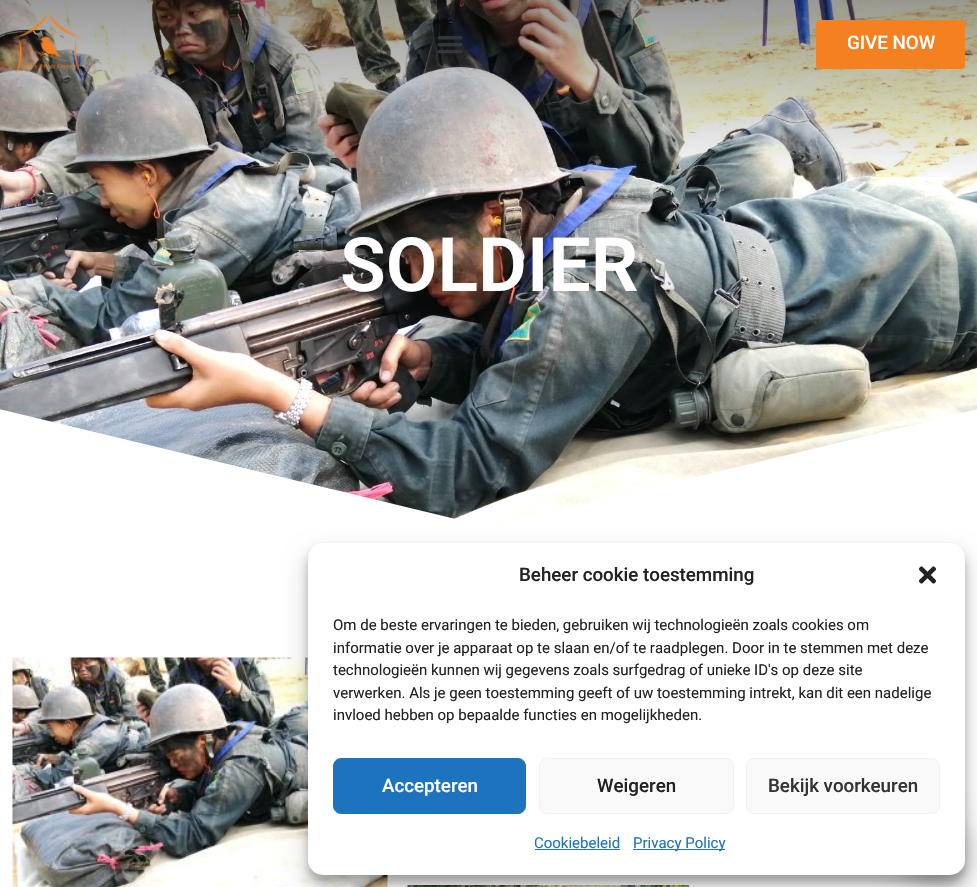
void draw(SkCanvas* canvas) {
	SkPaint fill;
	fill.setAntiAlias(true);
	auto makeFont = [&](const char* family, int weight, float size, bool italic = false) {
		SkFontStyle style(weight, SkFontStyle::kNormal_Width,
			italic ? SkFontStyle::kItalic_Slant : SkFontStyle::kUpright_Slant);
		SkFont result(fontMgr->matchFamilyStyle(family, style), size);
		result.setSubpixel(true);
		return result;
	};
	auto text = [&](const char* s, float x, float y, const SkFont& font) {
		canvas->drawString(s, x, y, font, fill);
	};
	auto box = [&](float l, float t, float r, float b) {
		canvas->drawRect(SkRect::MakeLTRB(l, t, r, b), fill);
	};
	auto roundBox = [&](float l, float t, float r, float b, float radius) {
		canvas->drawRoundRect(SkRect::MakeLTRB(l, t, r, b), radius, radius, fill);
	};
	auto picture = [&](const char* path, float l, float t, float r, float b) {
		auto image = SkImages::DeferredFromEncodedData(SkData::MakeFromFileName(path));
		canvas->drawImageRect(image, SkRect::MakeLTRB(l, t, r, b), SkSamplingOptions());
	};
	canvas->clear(0xFFFFFFFF);
	picture("image2.png", 0, 0, 977, 527);
	{
		const SkColor colors[] = {0x66000000, 0x00000000};
		const float stops[] = {0, 0.35f};
		const SkPoint ends[] = {{489, 0}, {489, 533}};
		fill.setShader(SkGradientShader::MakeLinear(ends, colors, stops, 2, SkTileMode::kClamp));
		fill.setAlpha(255);
	}
	box(0, 0, 977, 177);
	picture("image0.png", 12, 12, 84, 75);
	fill.setShader(nullptr);
	fill.setColor(0x0D000000);
	box(430, 24, 471, 65);
	picture("image1.png", 437, 36, 463, 54);
	fill.setColor(0xFFF48020);
	roundBox(816, 20, 965, 69, 4);
	fill.setColor(0xFFFFFFFF);
	canvas->drawPath(SkPathBuilder().moveTo(489, 527).lineTo(-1, 409).lineTo(-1, 534).lineTo(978, 534).lineTo(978, 409).close().detach(), fill);
	picture("image4.png", 12, 657, 388, 887);
	picture("image5.png", 407, 885, 689, 887);
	fill.setColor(0x3B000000);
	fill.setMaskFilter(SkMaskFilter::MakeBlur(kNormal_SkBlurStyle, 4));
	canvas->drawRoundRect(SkRect::MakeLTRB(308, 550, 965, 883), 15, 15, fill);
	fill.setMaskFilter(nullptr);
	fill.setColor(0x30000000);
	fill.setMaskFilter(SkMaskFilter::MakeBlur(kNormal_SkBlurStyle, 12.5f));
	canvas->drawRoundRect(SkRect::MakeLTRB(308, 555, 965, 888), 15, 15, fill);
	fill.setMaskFilter(nullptr);
	fill.setColor(0x33000000);
	fill.setMaskFilter(SkMaskFilter::MakeBlur(kNormal_SkBlurStyle, 14.5f));
	canvas->drawRoundRect(SkRect::MakeLTRB(901, 819, 971, 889), 35, 35, fill);
	fill.setMaskFilter(nullptr);
	fill.setColor(0xFFFFFFFF);
	roundBox(308, 543, 965, 875, 15);
	picture("image3.png", 918, 566, 937, 584);
	fill.setColor(0xFF1E73BE);
	canvas->drawRoundRect(SkRect::MakeLTRB(333.5f, 758.5f, 525.5f, 813.5f), 7.5f, 7.5f, fill);
	fill.setStyle(SkPaint::kStroke_Style);
	fill.setStrokeWidth(1);
	canvas->drawRoundRect(SkRect::MakeLTRB(333.5f, 758.5f, 525.5f, 813.5f), 7.5f, 7.5f, fill);
	fill.setStyle(SkPaint::kFill_Style);
	fill.setColor(0xFFF9F9F9);
	canvas->drawRoundRect(SkRect::MakeLTRB(539.5f, 758.5f, 733.5f, 813.5f), 7.5f, 7.5f, fill);
	fill.setStyle(SkPaint::kStroke_Style);
	fill.setColor(0xFFF2F2F2);
	canvas->drawRoundRect(SkRect::MakeLTRB(539.5f, 758.5f, 733.5f, 813.5f), 7.5f, 7.5f, fill);
	fill.setStyle(SkPaint::kFill_Style);
	fill.setColor(0xFFF9F9F9);
	canvas->drawRoundRect(SkRect::MakeLTRB(746.5f, 758.5f, 939.5f, 813.5f), 7.5f, 7.5f, fill);
	fill.setStyle(SkPaint::kStroke_Style);
	fill.setColor(0xFFF2F2F2);
	canvas->drawRoundRect(SkRect::MakeLTRB(746.5f, 758.5f, 939.5f, 813.5f), 7.5f, 7.5f, fill);
	fill.setStyle(SkPaint::kFill_Style);
	fill.setColor(0xFF1E73BE);
	box(535, 849, 620, 850);
	box(633, 849, 725, 850);
	auto font1 = makeFont("Roboto", 500, 18.75f);
	fill.setColor(0xFFFFFFFF);
	text("GIVE NOW", 847, 49, font1);
	auto font2 = makeFont("Roboto", 600, 75);
	text("SOLDIER", 340, 291, font2);
	fill.setColor(0xFF222222);
	text("Beheer cookie toestemming", 519, 581, font1);
	auto font3 = makeFont("Roboto", 400, 15);
	text("Om de beste ervaringen te bieden, gebruiken wij technologieën zoals cookies om", 333, 630, font3);
	text("informatie over je apparaat op te slaan en/of te raadplegen. Door in te stemmen met deze", 333, 653, font3);
	text("technologieën kunnen wij gegevens zoals surfgedrag of unieke ID's op deze site", 333, 675, font3);
	text("verwerken. Als je geen toestemming geeft of uw toestemming intrekt, kan dit een nadelige", 333, 698, font3);
	text("invloed hebben op bepaalde functies en mogelijkheden.", 333, 720, font3);
	fill.setColor(0xFFFFFFFF);
	text("Accepteren", 382, 792, font1);
	fill.setColor(0xFF222222);
	text("Weigeren", 597, 792, font1);
	fill.setColor(0xFF333333);
	text("Bekijk voorkeuren", 768, 792, font1);
	fill.setColor(0xFF1E73BE);
	text("Cookiebeleid", 534, 848, font3);
	text("Privacy Policy", 633, 848, font3);
}
